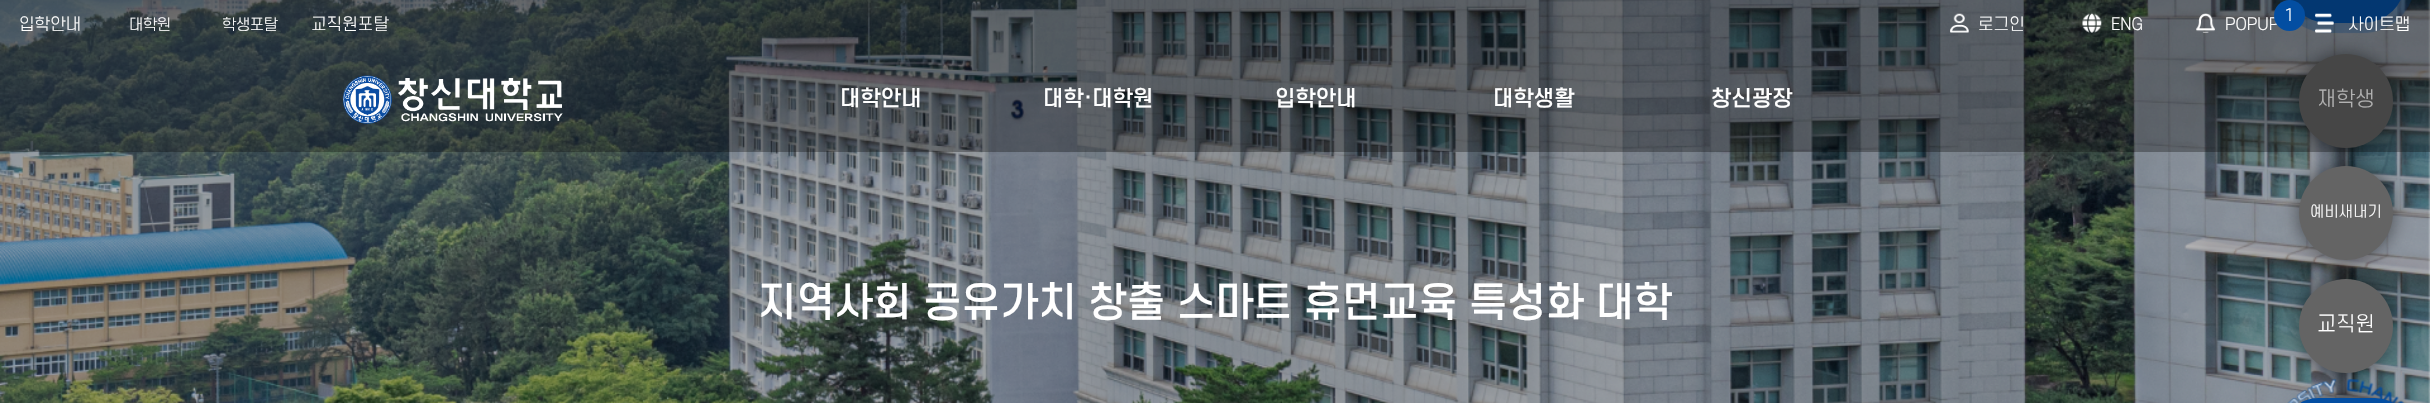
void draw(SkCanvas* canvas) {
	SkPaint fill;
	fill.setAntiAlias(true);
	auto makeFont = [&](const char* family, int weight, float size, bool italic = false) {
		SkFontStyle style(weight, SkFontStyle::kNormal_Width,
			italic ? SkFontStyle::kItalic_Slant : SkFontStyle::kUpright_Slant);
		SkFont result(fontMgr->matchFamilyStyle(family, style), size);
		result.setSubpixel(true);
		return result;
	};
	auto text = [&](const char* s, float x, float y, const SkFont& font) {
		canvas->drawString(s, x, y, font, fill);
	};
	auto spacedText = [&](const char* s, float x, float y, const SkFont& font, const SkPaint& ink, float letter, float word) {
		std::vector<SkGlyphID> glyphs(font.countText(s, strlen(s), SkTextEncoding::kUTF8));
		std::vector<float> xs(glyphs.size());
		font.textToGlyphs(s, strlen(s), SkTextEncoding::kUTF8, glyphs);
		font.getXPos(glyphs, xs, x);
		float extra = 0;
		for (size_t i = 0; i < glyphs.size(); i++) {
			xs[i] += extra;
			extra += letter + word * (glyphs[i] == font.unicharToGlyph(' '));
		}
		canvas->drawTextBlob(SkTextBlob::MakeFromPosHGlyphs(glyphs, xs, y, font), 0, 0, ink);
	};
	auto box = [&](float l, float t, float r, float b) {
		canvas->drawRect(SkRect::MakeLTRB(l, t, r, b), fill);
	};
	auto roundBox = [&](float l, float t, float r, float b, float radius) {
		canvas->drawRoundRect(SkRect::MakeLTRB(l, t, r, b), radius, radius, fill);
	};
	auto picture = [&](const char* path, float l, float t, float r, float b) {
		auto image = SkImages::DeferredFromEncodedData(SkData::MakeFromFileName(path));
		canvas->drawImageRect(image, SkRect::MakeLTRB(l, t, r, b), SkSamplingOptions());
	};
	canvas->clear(0xFFFFFFFF);
	picture("image5.png", 0, 0, 2430, 403);
	fill.setColor(0x80000000);
	fill.setMaskFilter(SkMaskFilter::MakeBlur(kNormal_SkBlurStyle, 9.5f));
	canvas->drawRoundRect(SkRect::MakeLTRB(2299, 54, 2393, 148), 47, 47, fill);
	fill.setMaskFilter(nullptr);
	fill.setColor(0xFF646464);
	canvas->drawCircle(2346, 101, 47, fill);
	fill.setColor(0x80000000);
	fill.setMaskFilter(SkMaskFilter::MakeBlur(kNormal_SkBlurStyle, 9.5f));
	canvas->drawRoundRect(SkRect::MakeLTRB(2299, 166, 2393, 260), 47, 47, fill);
	fill.setMaskFilter(nullptr);
	fill.setColor(0x12000000);
	box(0, 150, 2430, 151);
	box(0, 151, 2430, 152);
	box(0, 150, 2430, 151);
	box(0, 151, 2430, 152);
	box(0, 150, 2430, 151);
	box(0, 151, 2430, 152);
	box(0, 150, 2430, 151);
	box(0, 151, 2430, 152);
	box(0, 150, 2430, 151);
	box(0, 151, 2430, 152);
	fill.setColor(0x4D034EA2);
	fill.setMaskFilter(SkMaskFilter::MakeBlur(kNormal_SkBlurStyle, 0.5f));
	canvas->drawRoundRect(SkRect::MakeLTRB(2276, -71, 2415, 33), 69.5f, 69.5f, fill);
	fill.setMaskFilter(nullptr);
	fill.setColor(0xFF034EA2);
	roundBox(2286, -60, 2405, 23, 59.5f);
	fill.setColor(0xFF646464);
	canvas->drawCircle(2346, 213, 47, fill);
	fill.setColor(0x80000000);
	fill.setMaskFilter(SkMaskFilter::MakeBlur(kNormal_SkBlurStyle, 9.5f));
	canvas->drawRoundRect(SkRect::MakeLTRB(2299, 279, 2393, 373), 47, 47, fill);
	fill.setMaskFilter(nullptr);
	fill.setColor(0xFF646464);
	canvas->drawCircle(2346, 326, 47, fill);
	picture("image6.png", 2287, 379, 2405, 403);
	fill.setColor(0x80000000);
	fill.setMaskFilter(SkMaskFilter::MakeBlur(kNormal_SkBlurStyle, 9.5f));
	canvas->drawRoundRect(SkRect::MakeLTRB(2284, 398, 2409, 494), 62.5f, 62.5f, fill);
	fill.setMaskFilter(nullptr);
	fill.setColor(0xFF034EA2);
	roundBox(2284, 398, 2409, 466, 62.5f);
	auto font1 = makeFont("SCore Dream", 500, 40);
	fill.setColor(0xFFFFFFFF);
	text("지역사회 공유가치 창출 스마트 휴먼교육 특성화 대학", 758, 317, font1);
	auto font2 = makeFont("SCore Dream", 300, 20);
	text("재학생", 2317, 106, font2);
	fill.setColor(0x4D000000);
	box(0, 0, 2430, 150);
	picture("image4.png", 343, 75, 563, 124);
	auto font3 = makeFont("SCore Dream", 500, 21.25f);
	fill.setColor(0xFFFFFFFF);
	text("창신광장", 1711, 106, font3);
	text("대학생활", 1493, 106, font3);
	text("입학안내", 1275, 106, font3);
	text("대학·대학원", 1043, 106, font3);
	text("대학안내", 840, 106, font3);
	picture("image3.png", 2315, 13, 2334, 33);
	auto font4 = makeFont("SCore Dream", 300, 16.25f);
	text("사이트맵", 2348, 30, font4);
	text("POPUP", 2225, 30, font4);
	fill.setColor(0xFF034EA2);
	canvas->drawCircle(2289.5f, 15.5f, 15.5f, fill);
	fill.setColor(0xFFFFFFFF);
	text("1", 2284, 21, font4);
	picture("image2.png", 2196, 13, 2215, 33);
	picture("image1.png", 2082, 13, 2102, 33);
	text("ENG", 2111, 30, font4);
	picture("image0.png", 1950, 13, 1969, 33);
	text("로그인", 1978, 30, font4);
	text("교직원포탈", 311, 30, font4);
	auto font5 = makeFont("SCore Dream", 300, 15);
	spacedText("학생포탈", 222, 30, font5, fill, -0.5f, 0);
	spacedText("대학원", 129, 30, font5, fill, -0.5f, 0);
	text("입학안내", 19, 30, font4);
	text("예비새내기", 2310, 217, font5);
	text("교직원", 2317, 331, font2);
}
